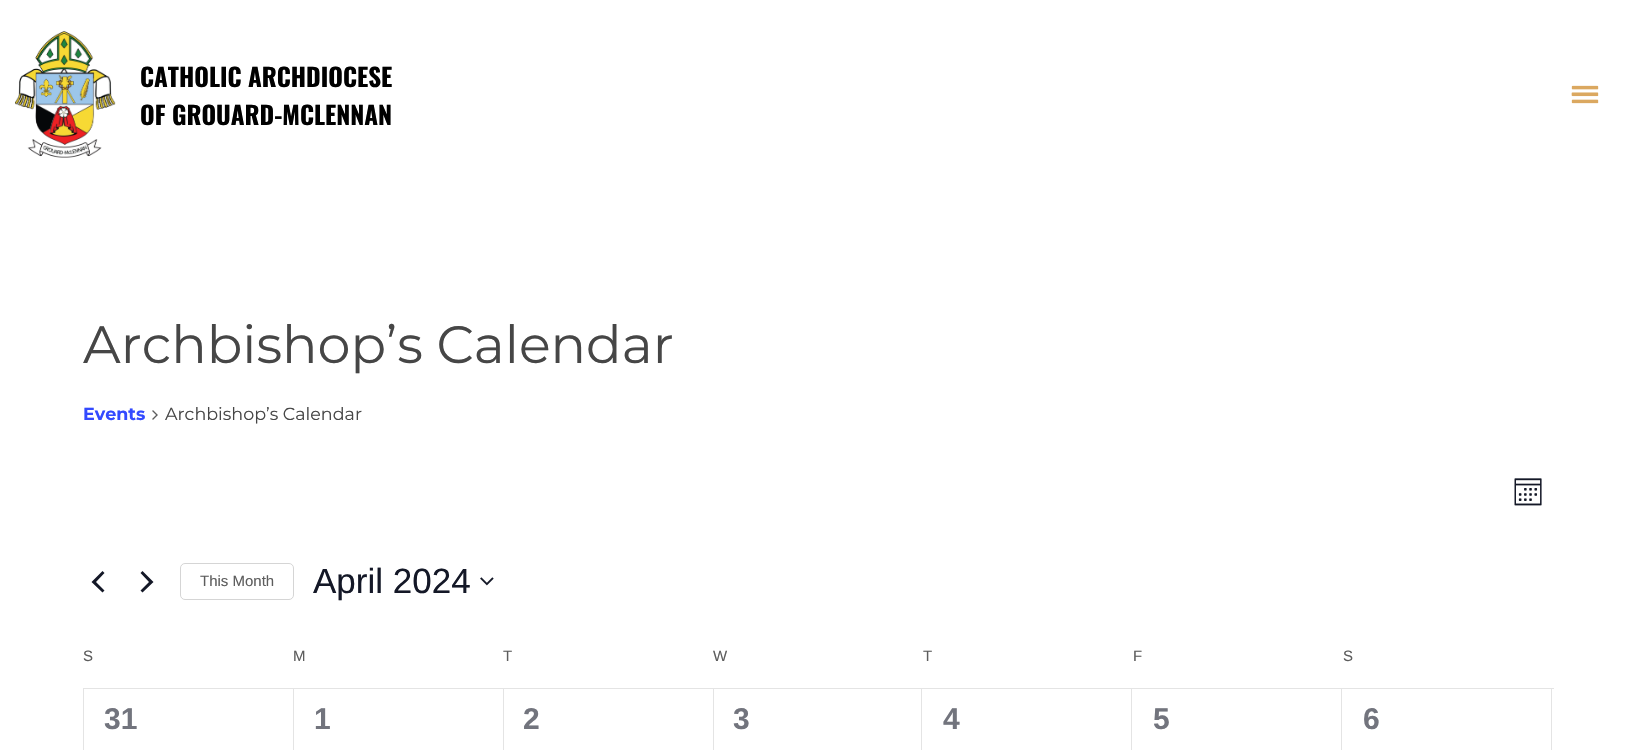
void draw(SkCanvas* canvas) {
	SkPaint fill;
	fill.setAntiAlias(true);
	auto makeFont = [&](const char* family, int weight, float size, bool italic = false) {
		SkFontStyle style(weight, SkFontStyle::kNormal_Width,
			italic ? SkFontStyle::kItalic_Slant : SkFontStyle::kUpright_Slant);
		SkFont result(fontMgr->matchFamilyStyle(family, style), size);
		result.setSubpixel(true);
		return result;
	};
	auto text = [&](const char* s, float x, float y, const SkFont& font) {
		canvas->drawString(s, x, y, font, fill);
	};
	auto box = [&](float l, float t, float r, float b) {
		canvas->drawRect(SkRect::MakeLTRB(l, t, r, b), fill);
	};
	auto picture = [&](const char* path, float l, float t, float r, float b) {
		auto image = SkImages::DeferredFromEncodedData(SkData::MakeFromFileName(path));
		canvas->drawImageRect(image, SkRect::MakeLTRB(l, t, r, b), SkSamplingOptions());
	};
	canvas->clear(0xFFFFFFFF);
	picture("image0.png", 15, 31, 116, 158);
	picture("image1.png", 1571, 85, 1599, 104);
	picture("image2.png", 152, 410, 158, 420);
	picture("image3.png", 1514, 478, 1542, 506);
	fill.setColor(0xFF141827);
	canvas->drawPath(SkPathBuilder().moveTo(104.5f, 590.5f).lineTo(102.5f, 592.5f).lineTo(91.5f, 582).lineTo(102.5f, 571).lineTo(104.5f, 573).lineTo(96, 582).close().moveTo(140.5f, 573).lineTo(142.5f, 571).lineTo(153.5f, 582).lineTo(142.5f, 592.5f).lineTo(140.5f, 590.5f).lineTo(149, 582).close().detach(), fill);
	fill.setStyle(SkPaint::kStroke_Style);
	fill.setStrokeWidth(1);
	fill.setColor(0xFFD5D5D5);
	canvas->drawRoundRect(SkRect::MakeLTRB(180.5f, 563.5f, 293.5f, 599.5f), 4.5f, 4.5f, fill);
	picture("image4.png", 480, 577, 494, 586);
	fill.setStyle(SkPaint::kFill_Style);
	fill.setColor(0xFFE4E4E4);
	box(83, 688, 1554, 689);
	box(83, 689, 84, 750);
	box(293, 689, 294, 750);
	box(503, 689, 504, 750);
	box(713, 689, 714, 750);
	box(921, 689, 922, 750);
	box(1131, 689, 1132, 750);
	box(1341, 689, 1342, 750);
	box(1551, 689, 1552, 750);
	auto font1 = makeFont("Oswald", 700, 25);
	fill.setColor(0xFF000000);
	text("CATHOLIC ARCHDIOCESE", 140, 87, font1);
	text("OF GROUARD-MCLENNAN", 140, 125, font1);
	auto font2 = makeFont("Montserrat", 400, 52.5f);
	fill.setColor(0xFF464646);
	text("Archbishop’s Calendar", 83, 363, font2);
	auto font3 = makeFont("Montserrat", 700, 17.5f);
	fill.setColor(0xFF334AFF);
	text("Events", 83, 420, font3);
	auto font4 = makeFont("Montserrat", 400, 17.5f);
	fill.setColor(0xFF464646);
	text("Archbishop’s Calendar", 165, 420, font4);
	auto font5 = makeFont("Liberation Sans", 400, 15);
	fill.setColor(0xFF5D5D5D);
	text("This Month", 200, 586, font5);
	auto font6 = makeFont("Liberation Sans", 400, 35);
	fill.setColor(0xFF141827);
	text("April 2024", 313, 593, font6);
	fill.setColor(0xFF5D5D5D);
	text("S", 83, 661, font5);
	text("M", 293, 661, font5);
	text("T", 503, 661, font5);
	text("W", 713, 661, font5);
	text("T", 923, 661, font5);
	text("F", 1133, 661, font5);
	text("S", 1343, 661, font5);
	auto font7 = makeFont("Liberation Sans", 700, 30);
	fill.setColor(0xFF72747D);
	text("31", 104, 729, font7);
	text("1", 314, 729, font7);
	text("2", 523, 729, font7);
	text("3", 733, 729, font7);
	text("4", 943, 729, font7);
	text("5", 1153, 729, font7);
	text("6", 1363, 729, font7);
}
